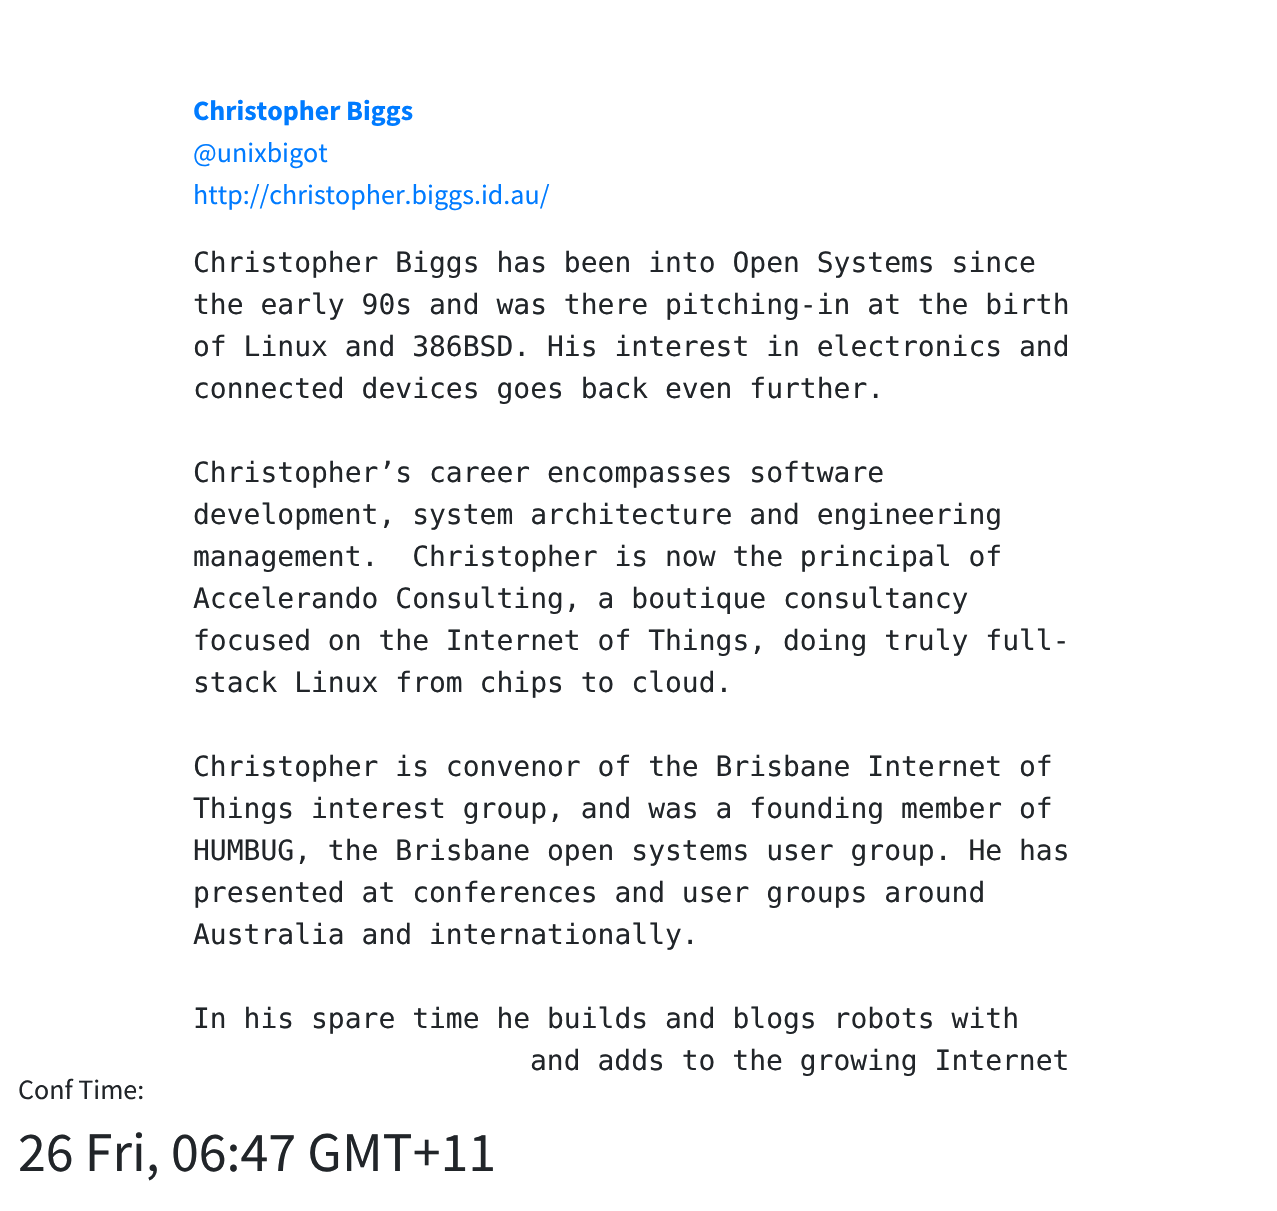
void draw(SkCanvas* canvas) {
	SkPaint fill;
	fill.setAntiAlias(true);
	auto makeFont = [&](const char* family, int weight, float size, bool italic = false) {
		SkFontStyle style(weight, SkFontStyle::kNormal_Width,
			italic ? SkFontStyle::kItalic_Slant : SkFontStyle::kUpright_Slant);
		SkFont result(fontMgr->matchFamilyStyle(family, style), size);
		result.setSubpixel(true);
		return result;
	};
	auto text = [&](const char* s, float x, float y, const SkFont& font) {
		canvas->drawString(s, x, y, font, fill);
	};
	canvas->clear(0xFFFFFFFF);
	auto font1 = makeFont("Source Sans Pro", 700, 28);
	fill.setColor(0xFF007BFF);
	text("Christopher Biggs", 193, 120, font1);
	auto font2 = makeFont("Source Sans Pro", 400, 28);
	text("@unixbigot", 193, 162, font2);
	text("http://christopher.biggs.id.au/", 193, 204, font2);
	auto font3 = makeFont("DejaVu Sans Mono", 400, 28);
	fill.setColor(0xFF212529);
	text("Christopher Biggs has been into Open Systems since", 193, 272, font3);
	text("the early 90s and was there pitching-in at the birth", 193, 314, font3);
	text("of Linux and 386BSD. His interest in electronics and", 193, 356, font3);
	text("connected devices goes back even further.", 193, 398, font3);
	text("Christopher’s career encompasses software", 193, 482, font3);
	text("development, system architecture and engineering", 193, 524, font3);
	text("management.  Christopher is now the principal of", 193, 566, font3);
	text("Accelerando Consulting, a boutique consultancy", 193, 608, font3);
	text("focused on the Internet of Things, doing truly full-", 193, 650, font3);
	text("stack Linux from chips to cloud.", 193, 692, font3);
	text("Christopher is convenor of the Brisbane Internet of", 193, 776, font3);
	text("Things interest group, and was a founding member of", 193, 818, font3);
	text("HUMBUG, the Brisbane open systems user group. He has", 193, 860, font3);
	text("presented at conferences and user groups around", 193, 902, font3);
	text("Australia and internationally.", 193, 944, font3);
	text("In his spare time he builds and blogs robots with", 193, 1028, font3);
	text("and adds to the growing Internet", 530, 1070, font3);
	text("Conf Time:", 18, 1099, font2);
	auto font4 = makeFont("Source Sans Pro", 400, 56);
	text("26 Fri, 06:47 GMT+11", 18, 1171, font4);
}
